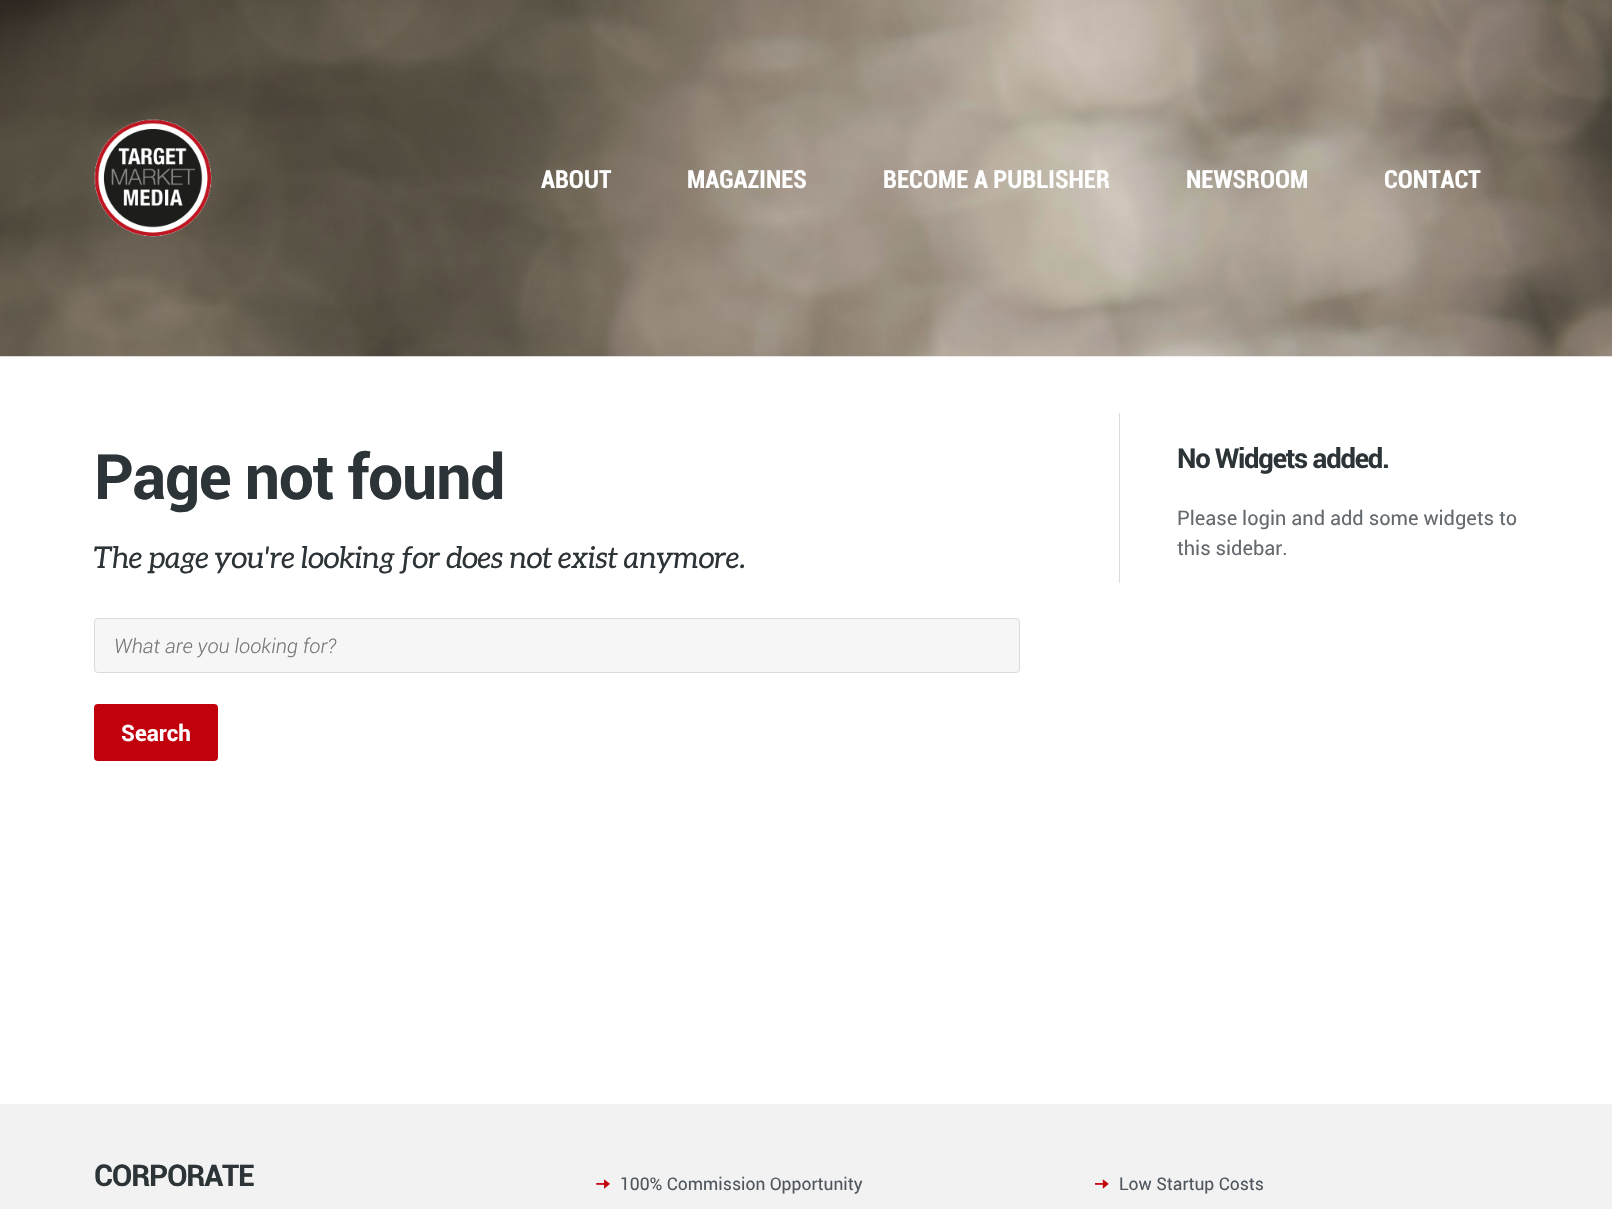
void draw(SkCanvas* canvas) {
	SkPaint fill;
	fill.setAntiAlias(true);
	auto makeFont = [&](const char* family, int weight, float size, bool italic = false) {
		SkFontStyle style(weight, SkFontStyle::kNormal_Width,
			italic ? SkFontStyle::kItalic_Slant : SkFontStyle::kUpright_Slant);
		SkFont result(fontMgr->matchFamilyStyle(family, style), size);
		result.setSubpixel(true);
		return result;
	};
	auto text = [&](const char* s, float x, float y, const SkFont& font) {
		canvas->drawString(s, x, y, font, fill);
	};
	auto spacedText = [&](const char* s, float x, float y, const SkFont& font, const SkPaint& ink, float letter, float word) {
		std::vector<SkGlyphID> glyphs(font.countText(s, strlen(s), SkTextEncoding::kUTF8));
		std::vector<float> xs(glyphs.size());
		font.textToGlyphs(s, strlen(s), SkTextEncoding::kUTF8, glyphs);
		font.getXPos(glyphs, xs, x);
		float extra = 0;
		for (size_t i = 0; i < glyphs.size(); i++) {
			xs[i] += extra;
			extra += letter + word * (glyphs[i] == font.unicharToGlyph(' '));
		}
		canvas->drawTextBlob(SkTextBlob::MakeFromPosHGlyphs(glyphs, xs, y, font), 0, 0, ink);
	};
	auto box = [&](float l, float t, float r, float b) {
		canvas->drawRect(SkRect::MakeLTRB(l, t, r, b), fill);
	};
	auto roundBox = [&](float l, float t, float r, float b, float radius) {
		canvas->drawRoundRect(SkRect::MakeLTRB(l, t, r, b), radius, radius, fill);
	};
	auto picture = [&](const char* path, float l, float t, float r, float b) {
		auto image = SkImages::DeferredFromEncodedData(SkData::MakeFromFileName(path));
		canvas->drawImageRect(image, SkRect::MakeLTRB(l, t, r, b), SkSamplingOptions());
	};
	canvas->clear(0xFFFFFFFF);
	picture("image0.png", 0, 0, 1612, 357);
	picture("image1.png", 94, 119, 212, 237);
	fill.setColor(0xFFF6F6F6);
	canvas->drawRoundRect(SkRect::MakeLTRB(94.5f, 618.5f, 1019.5f, 672.5f), 3.5f, 3.5f, fill);
	fill.setStyle(SkPaint::kStroke_Style);
	fill.setStrokeWidth(1);
	fill.setColor(0xFFD6DCE0);
	canvas->drawRoundRect(SkRect::MakeLTRB(94.5f, 618.5f, 1019.5f, 672.5f), 3.5f, 3.5f, fill);
	fill.setStyle(SkPaint::kFill_Style);
	fill.setColor(0xFFC1010C);
	roundBox(94, 704, 218, 761, 4);
	fill.setColor(0xFFD6DCE0);
	box(1119, 413, 1120, 583);
	fill.setColor(0xFFF2F2F2);
	box(0, 1104, 1612, 1209);
	picture("image2.png", 596, 1179, 610, 1189);
	picture("image3.png", 1095, 1179, 1109, 1189);
	auto font1 = makeFont("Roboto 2", 700, 25);
	fill.setColor(0xFFFFFFFF);
	text("ABOUT", 541, 188, font1);
	text("MAGAZINES", 687, 188, font1);
	text("BECOME A PUBLISHER", 883, 188, font1);
	text("NEWSROOM", 1186, 188, font1);
	text("CONTACT", 1384, 188, font1);
	auto font2 = makeFont("Roboto", 700, 62.5f);
	fill.setColor(0xFF2D3438);
	spacedText("Page not found", 94, 499, font2, fill, -1.25f, 0);
	auto font3 = makeFont("Aleo", 400, 30, true);
	text("The page you're looking for does not exist anymore.", 94, 568, font3);
	auto font4 = makeFont("Roboto", 300, 20, true);
	fill.setColor(0xFF757575);
	text("What are you looking for?", 114, 653, font4);
	auto font5 = makeFont("Roboto", 700, 22.5f);
	fill.setColor(0xFFFFFFFF);
	text("Search", 121, 741, font5);
	auto font6 = makeFont("Roboto", 700, 27.5f);
	fill.setColor(0xFF2D3438);
	spacedText("No Widgets added.", 1177, 468, font6, fill, -1.25f, 0);
	auto font7 = makeFont("Roboto", 400, 20);
	fill.setColor(0xFF656A6F);
	text("Please login and add some widgets to", 1177, 525, font7);
	text("this sidebar.", 1177, 555, font7);
	auto font8 = makeFont("Roboto", 700, 30);
	fill.setColor(0xFF2D3438);
	spacedText("CORPORATE", 94, 1186, font8, fill, -1.25f, 0);
	auto font9 = makeFont("Roboto", 400, 17.5f);
	fill.setColor(0xFF4F565E);
	text("100% Commission Opportunity", 620, 1190, font9);
	text("Low Startup Costs", 1119, 1190, font9);
}
